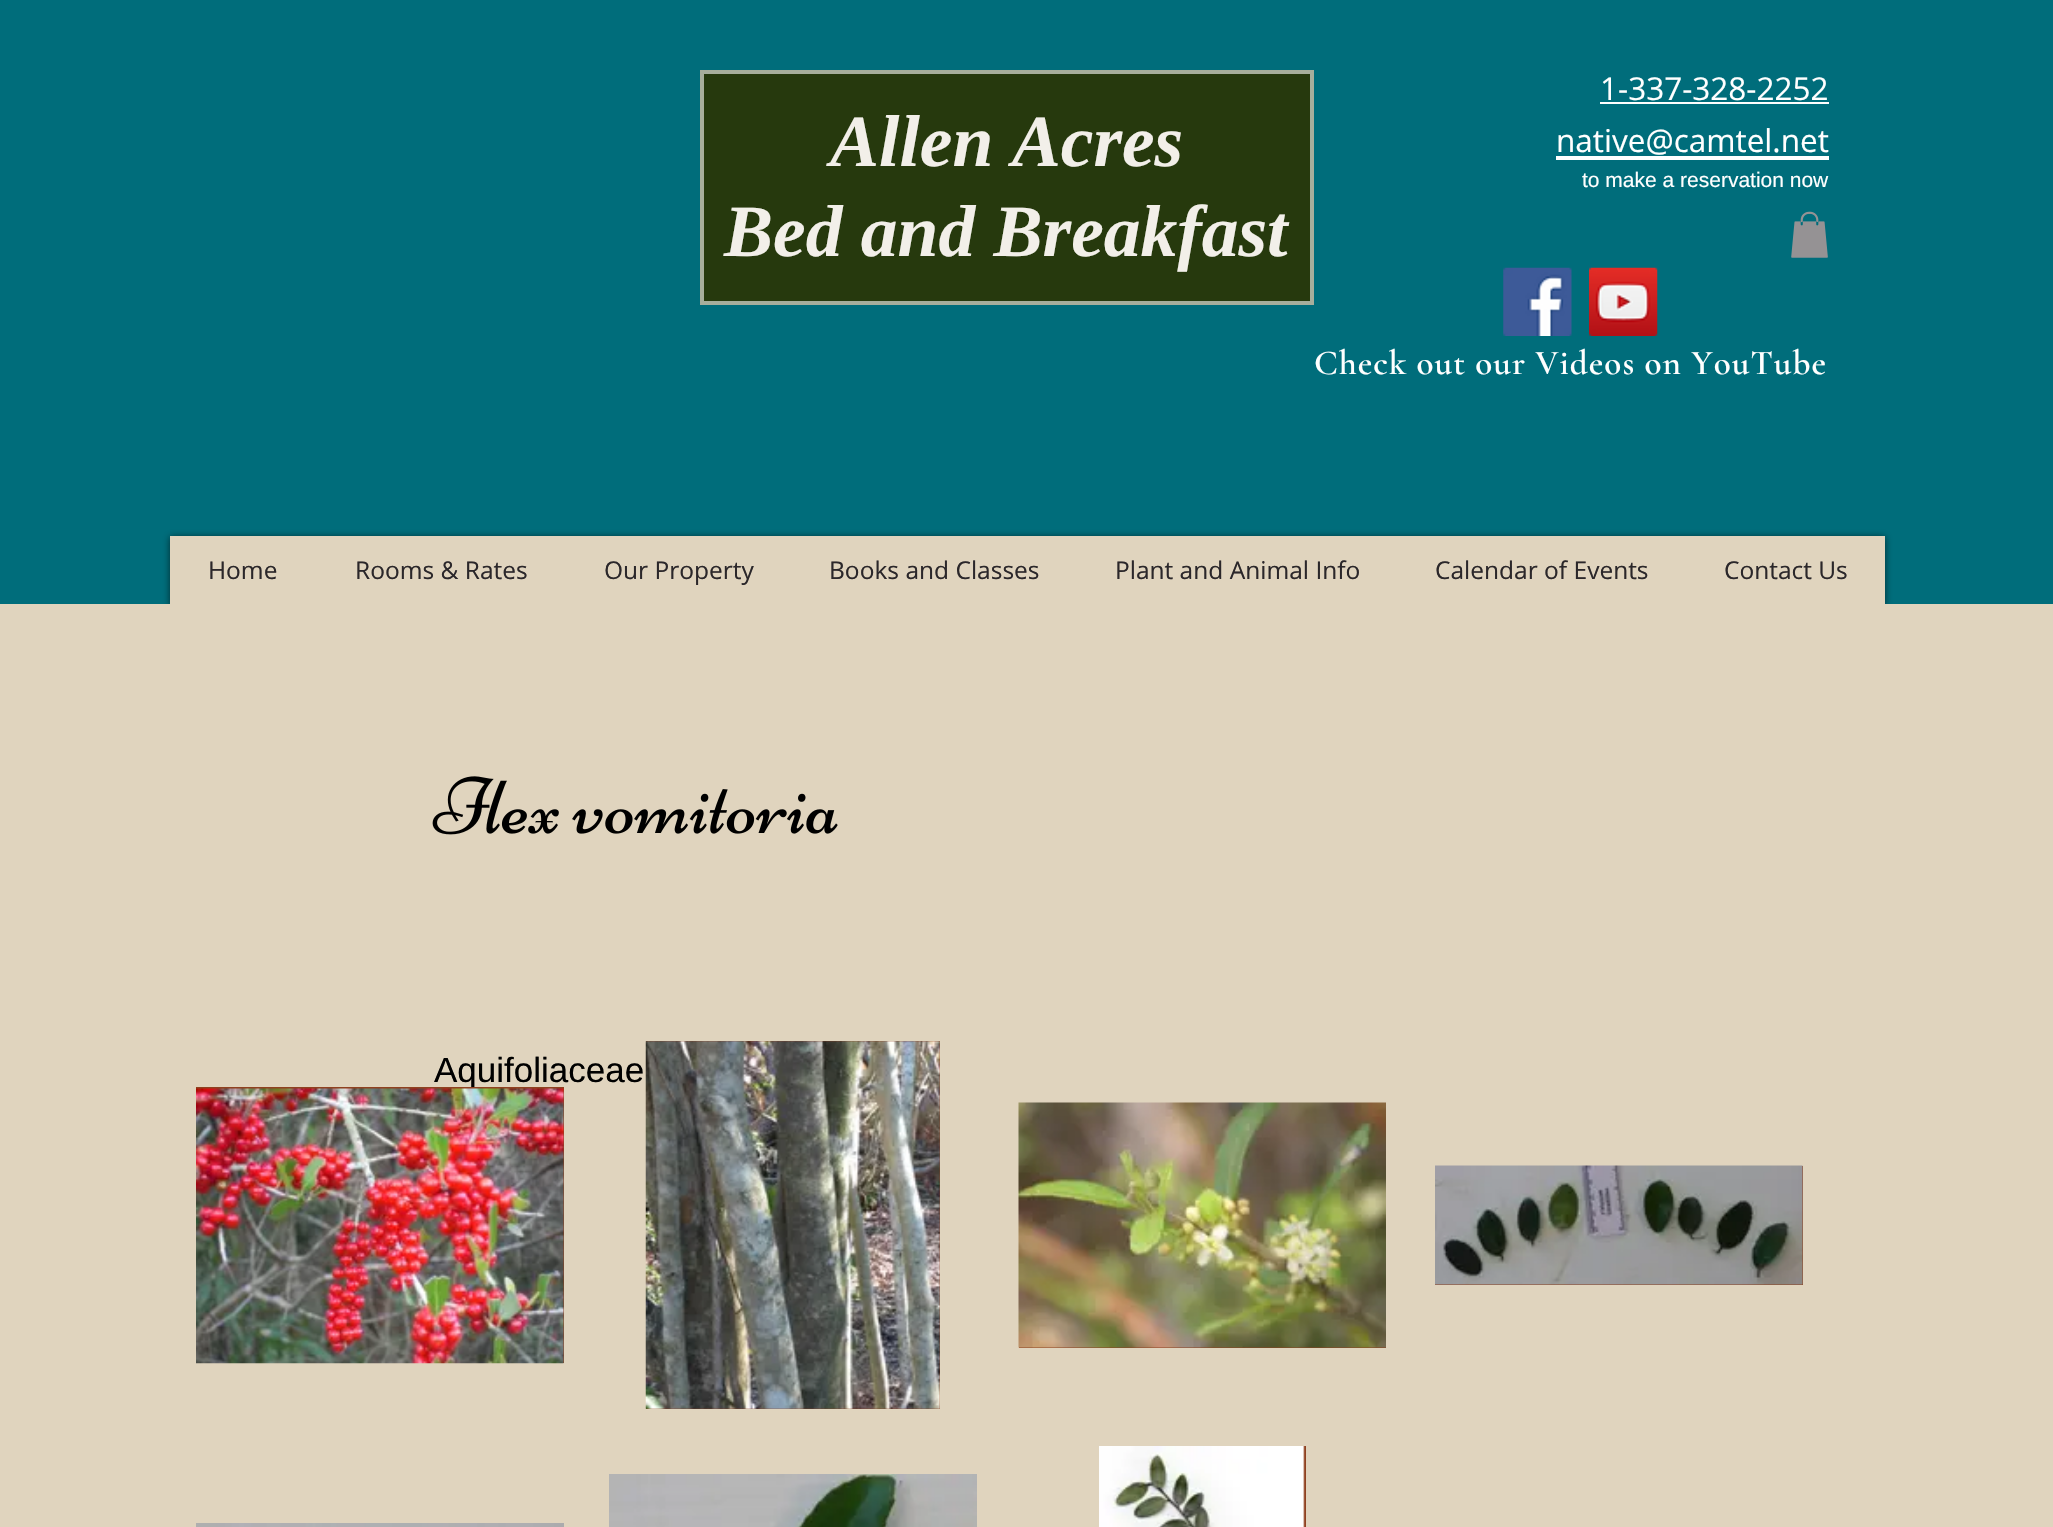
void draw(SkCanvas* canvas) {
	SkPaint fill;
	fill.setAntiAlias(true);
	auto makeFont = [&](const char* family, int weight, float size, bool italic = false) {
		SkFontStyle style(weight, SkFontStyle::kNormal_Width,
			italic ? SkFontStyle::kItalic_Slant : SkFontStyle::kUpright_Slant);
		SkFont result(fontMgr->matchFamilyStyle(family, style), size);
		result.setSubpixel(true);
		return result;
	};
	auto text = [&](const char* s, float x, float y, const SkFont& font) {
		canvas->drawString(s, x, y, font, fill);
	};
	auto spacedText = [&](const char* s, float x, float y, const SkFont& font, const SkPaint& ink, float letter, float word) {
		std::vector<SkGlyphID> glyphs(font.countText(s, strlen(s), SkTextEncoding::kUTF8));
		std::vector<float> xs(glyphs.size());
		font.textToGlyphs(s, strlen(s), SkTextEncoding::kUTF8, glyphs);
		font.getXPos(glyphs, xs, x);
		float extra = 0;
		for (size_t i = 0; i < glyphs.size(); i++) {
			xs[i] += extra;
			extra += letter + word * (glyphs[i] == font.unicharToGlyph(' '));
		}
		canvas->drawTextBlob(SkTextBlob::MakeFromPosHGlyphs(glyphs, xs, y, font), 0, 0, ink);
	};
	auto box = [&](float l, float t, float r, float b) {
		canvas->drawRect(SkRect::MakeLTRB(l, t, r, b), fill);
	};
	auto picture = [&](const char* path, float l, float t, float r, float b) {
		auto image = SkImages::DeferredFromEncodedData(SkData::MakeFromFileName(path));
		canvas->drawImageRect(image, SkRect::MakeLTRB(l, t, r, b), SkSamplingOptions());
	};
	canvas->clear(0xFF006D7B);
	fill.setColor(0xFF26390D);
	canvas->drawRect(SkRect::MakeLTRB(702, 72, 1312, 303), fill);
	fill.setStyle(SkPaint::kStroke_Style);
	fill.setStrokeWidth(4);
	fill.setColor(0xFFA7AE9C);
	canvas->drawRect(SkRect::MakeLTRB(702, 72, 1312, 303), fill);
	fill.setStyle(SkPaint::kFill_Style);
	fill.setColor(0xFFFFFFFF);
	box(1600, 102, 1829, 104);
	box(1556, 156, 1829, 160);
	picture("image0.png", 1791, 211, 1828, 258);
	picture("image1.png", 1503, 267, 1572, 336);
	picture("image2.png", 1589, 267, 1658, 336);
	fill.setColor(0x99000000);
	fill.setMaskFilter(SkMaskFilter::MakeBlur(kNormal_SkBlurStyle, 3.5f));
	canvas->drawRect(SkRect::MakeLTRB(170, 537, 1885, 606), fill);
	fill.setMaskFilter(nullptr);
	fill.setColor(0xFFE0D4BE);
	box(170, 536, 1885, 604);
	box(0, 604, 2053, 1527);
	picture("image3.png", 432, 776, 838, 835);
	fill.setColor(0xFF8F4120);
	box(646, 1041, 940, 1409);
	picture("image4.png", 645, 1041, 940, 1409);
	box(1019, 1347, 1386, 1348);
	picture("image6.png", 1018, 1102, 1386, 1348);
	box(1435, 1166, 1803, 1285);
	picture("image7.png", 1435, 1165, 1803, 1285);
	picture("image8.png", 196, 1523, 564, 1527);
	picture("image9.png", 609, 1474, 977, 1527);
	box(1303, 1446, 1306, 1527);
	picture("image10.png", 1099, 1446, 1305, 1527);
	auto font1 = makeFont("Liberation Serif", 700, 73.5f, true);
	fill.setColor(0xFFF2EFE9);
	text("Allen Acres", 830, 166, font1);
	text("Bed and Breakfast", 724, 256, font1);
	auto font2 = makeFont("Open Sans", 400, 31.5f);
	fill.setColor(0xFFFFFFFF);
	text("1-337-328-2252", 1600, 100, font2);
	text("native@camtel.net", 1556, 152, font2);
	auto font3 = makeFont("Liberation Sans", 400, 21);
	text("to make a reservation now", 1582, 187, font3);
	auto font4 = makeFont("Cormorant Garamond", 600, 35);
	spacedText("Check out our Videos on YouTube", 1314, 374, font4, fill, 1.05f, 0);
	auto font5 = makeFont("Open Sans", 400, 24.5f);
	fill.setColor(0xFF2B272A);
	text("Home", 208, 579, font5);
	text("Rooms & Rates", 355, 579, font5);
	text("Our Property", 604, 579, font5);
	text("Books and Classes", 829, 579, font5);
	text("Plant and Animal Info", 1115, 579, font5);
	text("Calendar of Events", 1435, 579, font5);
	text("Contact Us", 1724, 579, font5);
	auto font6 = makeFont("Liberation Sans", 400, 35);
	fill.setColor(0xFF000000);
	text("Aquifoliaceae", 434, 1082, font6);
	fill.setColor(0xFF8F4120);
	box(196, 1087, 564, 1363);
	picture("image5.png", 196, 1088, 564, 1364);
}
